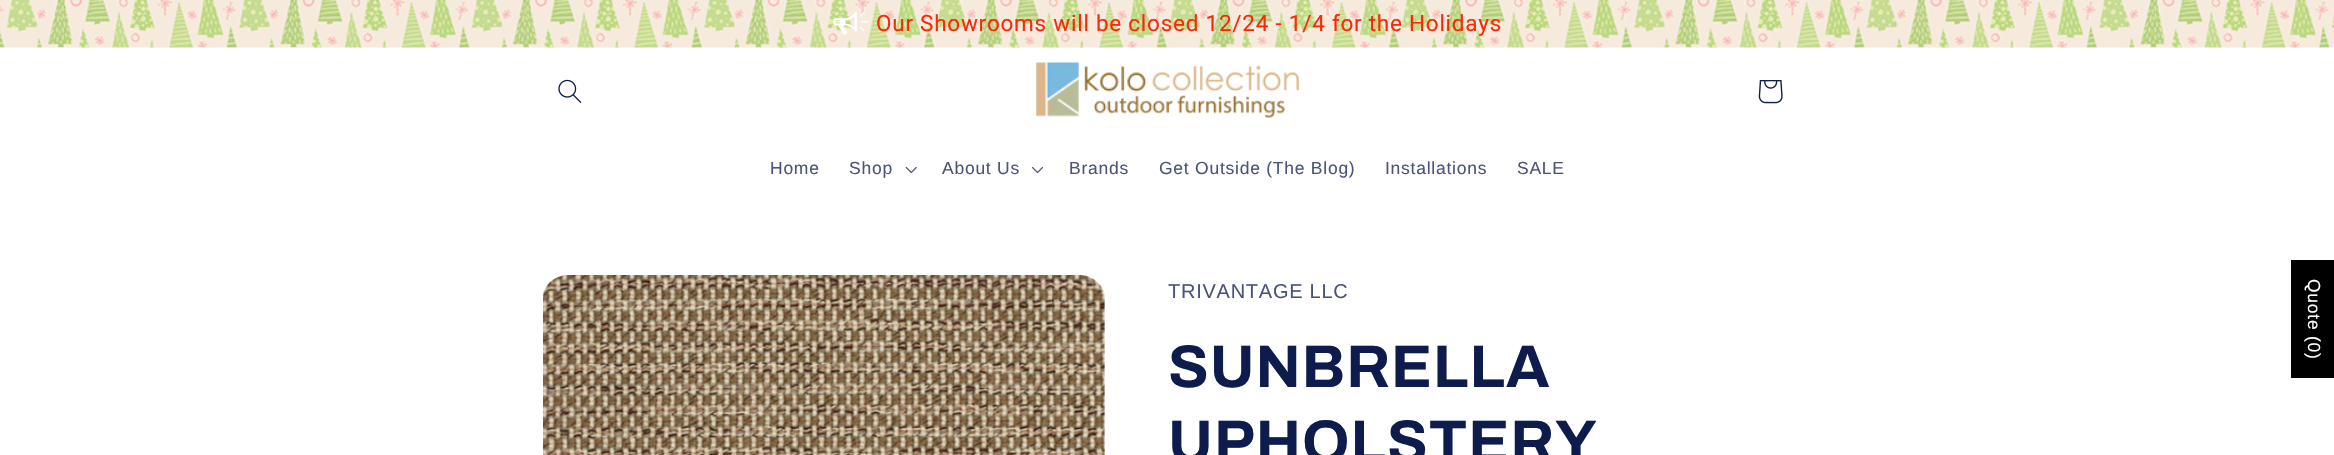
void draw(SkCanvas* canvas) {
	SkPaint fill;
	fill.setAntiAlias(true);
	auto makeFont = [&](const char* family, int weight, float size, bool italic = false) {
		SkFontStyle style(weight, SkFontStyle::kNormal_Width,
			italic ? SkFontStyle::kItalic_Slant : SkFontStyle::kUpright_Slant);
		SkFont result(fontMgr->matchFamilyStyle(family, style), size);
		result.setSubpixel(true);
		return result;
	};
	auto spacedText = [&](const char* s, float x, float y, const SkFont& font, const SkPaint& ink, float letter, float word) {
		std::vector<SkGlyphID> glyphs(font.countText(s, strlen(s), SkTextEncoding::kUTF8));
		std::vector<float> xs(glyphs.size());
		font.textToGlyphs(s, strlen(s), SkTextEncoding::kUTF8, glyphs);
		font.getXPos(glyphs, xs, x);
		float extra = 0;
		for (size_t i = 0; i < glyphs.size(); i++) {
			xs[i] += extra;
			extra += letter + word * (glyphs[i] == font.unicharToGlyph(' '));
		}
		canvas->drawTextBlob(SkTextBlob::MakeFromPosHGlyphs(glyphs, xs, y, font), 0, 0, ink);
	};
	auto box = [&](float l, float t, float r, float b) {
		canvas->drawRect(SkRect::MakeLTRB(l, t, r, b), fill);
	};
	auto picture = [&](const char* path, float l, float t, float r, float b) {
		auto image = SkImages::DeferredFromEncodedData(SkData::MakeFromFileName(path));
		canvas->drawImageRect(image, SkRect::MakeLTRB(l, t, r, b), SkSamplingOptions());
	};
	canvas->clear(0xFFFFFFFF);
	picture("image0.png", 0, 0, 2334, 48);
	picture("image1.png", 832, 12, 869, 35);
	picture("image2.png", 558, 79, 582, 103);
	picture("image3.png", 1036, 62, 1299, 118);
	picture("image4.png", 1758, 80, 1783, 104);
	picture("image5.png", 905, 166, 917, 174);
	picture("image6.png", 1031, 166, 1044, 174);
	picture("image7.png", 543, 275, 1105, 455);
	fill.setColor(0xFF000000);
	box(2291, 260, 2334, 378);
	auto font1 = makeFont("Roboto", 400, 22.5f);
	fill.setColor(0xFFFC2808);
	spacedText("Our Showrooms will be closed 12/24 - 1/4 for the Holidays", 876, 31, font1, fill, 0.75f, 0);
	auto font2 = makeFont("Liberation Sans", 400, 17.5f);
	fill.setColor(0xFF4A547A);
	spacedText("Home", 770, 174, font2, fill, 0.75f, 0);
	spacedText("Shop", 849, 174, font2, fill, 0.75f, 0);
	spacedText("About Us", 942, 174, font2, fill, 0.75f, 0);
	spacedText("Brands", 1069, 174, font2, fill, 0.75f, 0);
	spacedText("Get Outside (The Blog)", 1159, 174, font2, fill, 0.75f, 0);
	spacedText("Installations", 1385, 174, font2, fill, 0.75f, 0);
	spacedText("SALE", 1517, 174, font2, fill, 0.75f, 0);
	auto font3 = makeFont("Liberation Sans", 400, 20);
	spacedText("TRIVANTAGE LLC", 1168, 298, font3, fill, 0.75f, 0);
	auto font4 = makeFont("Archivo", 700, 60);
	fill.setColor(0xFF0E1B4D);
	spacedText("SUNBRELLA", 1168, 387, font4, fill, 1, 0);
	spacedText("UPHOLSTERY", 1168, 462, font4, fill, 1, 0);
	fill.setColor(0xFFFFFFFF);
	canvas->save();
	canvas->rotate(90, 2308, 279);
	spacedText("Quote (0)", 2308, 279, font2, fill, 0.75f, 0);
	canvas->restore();
}
